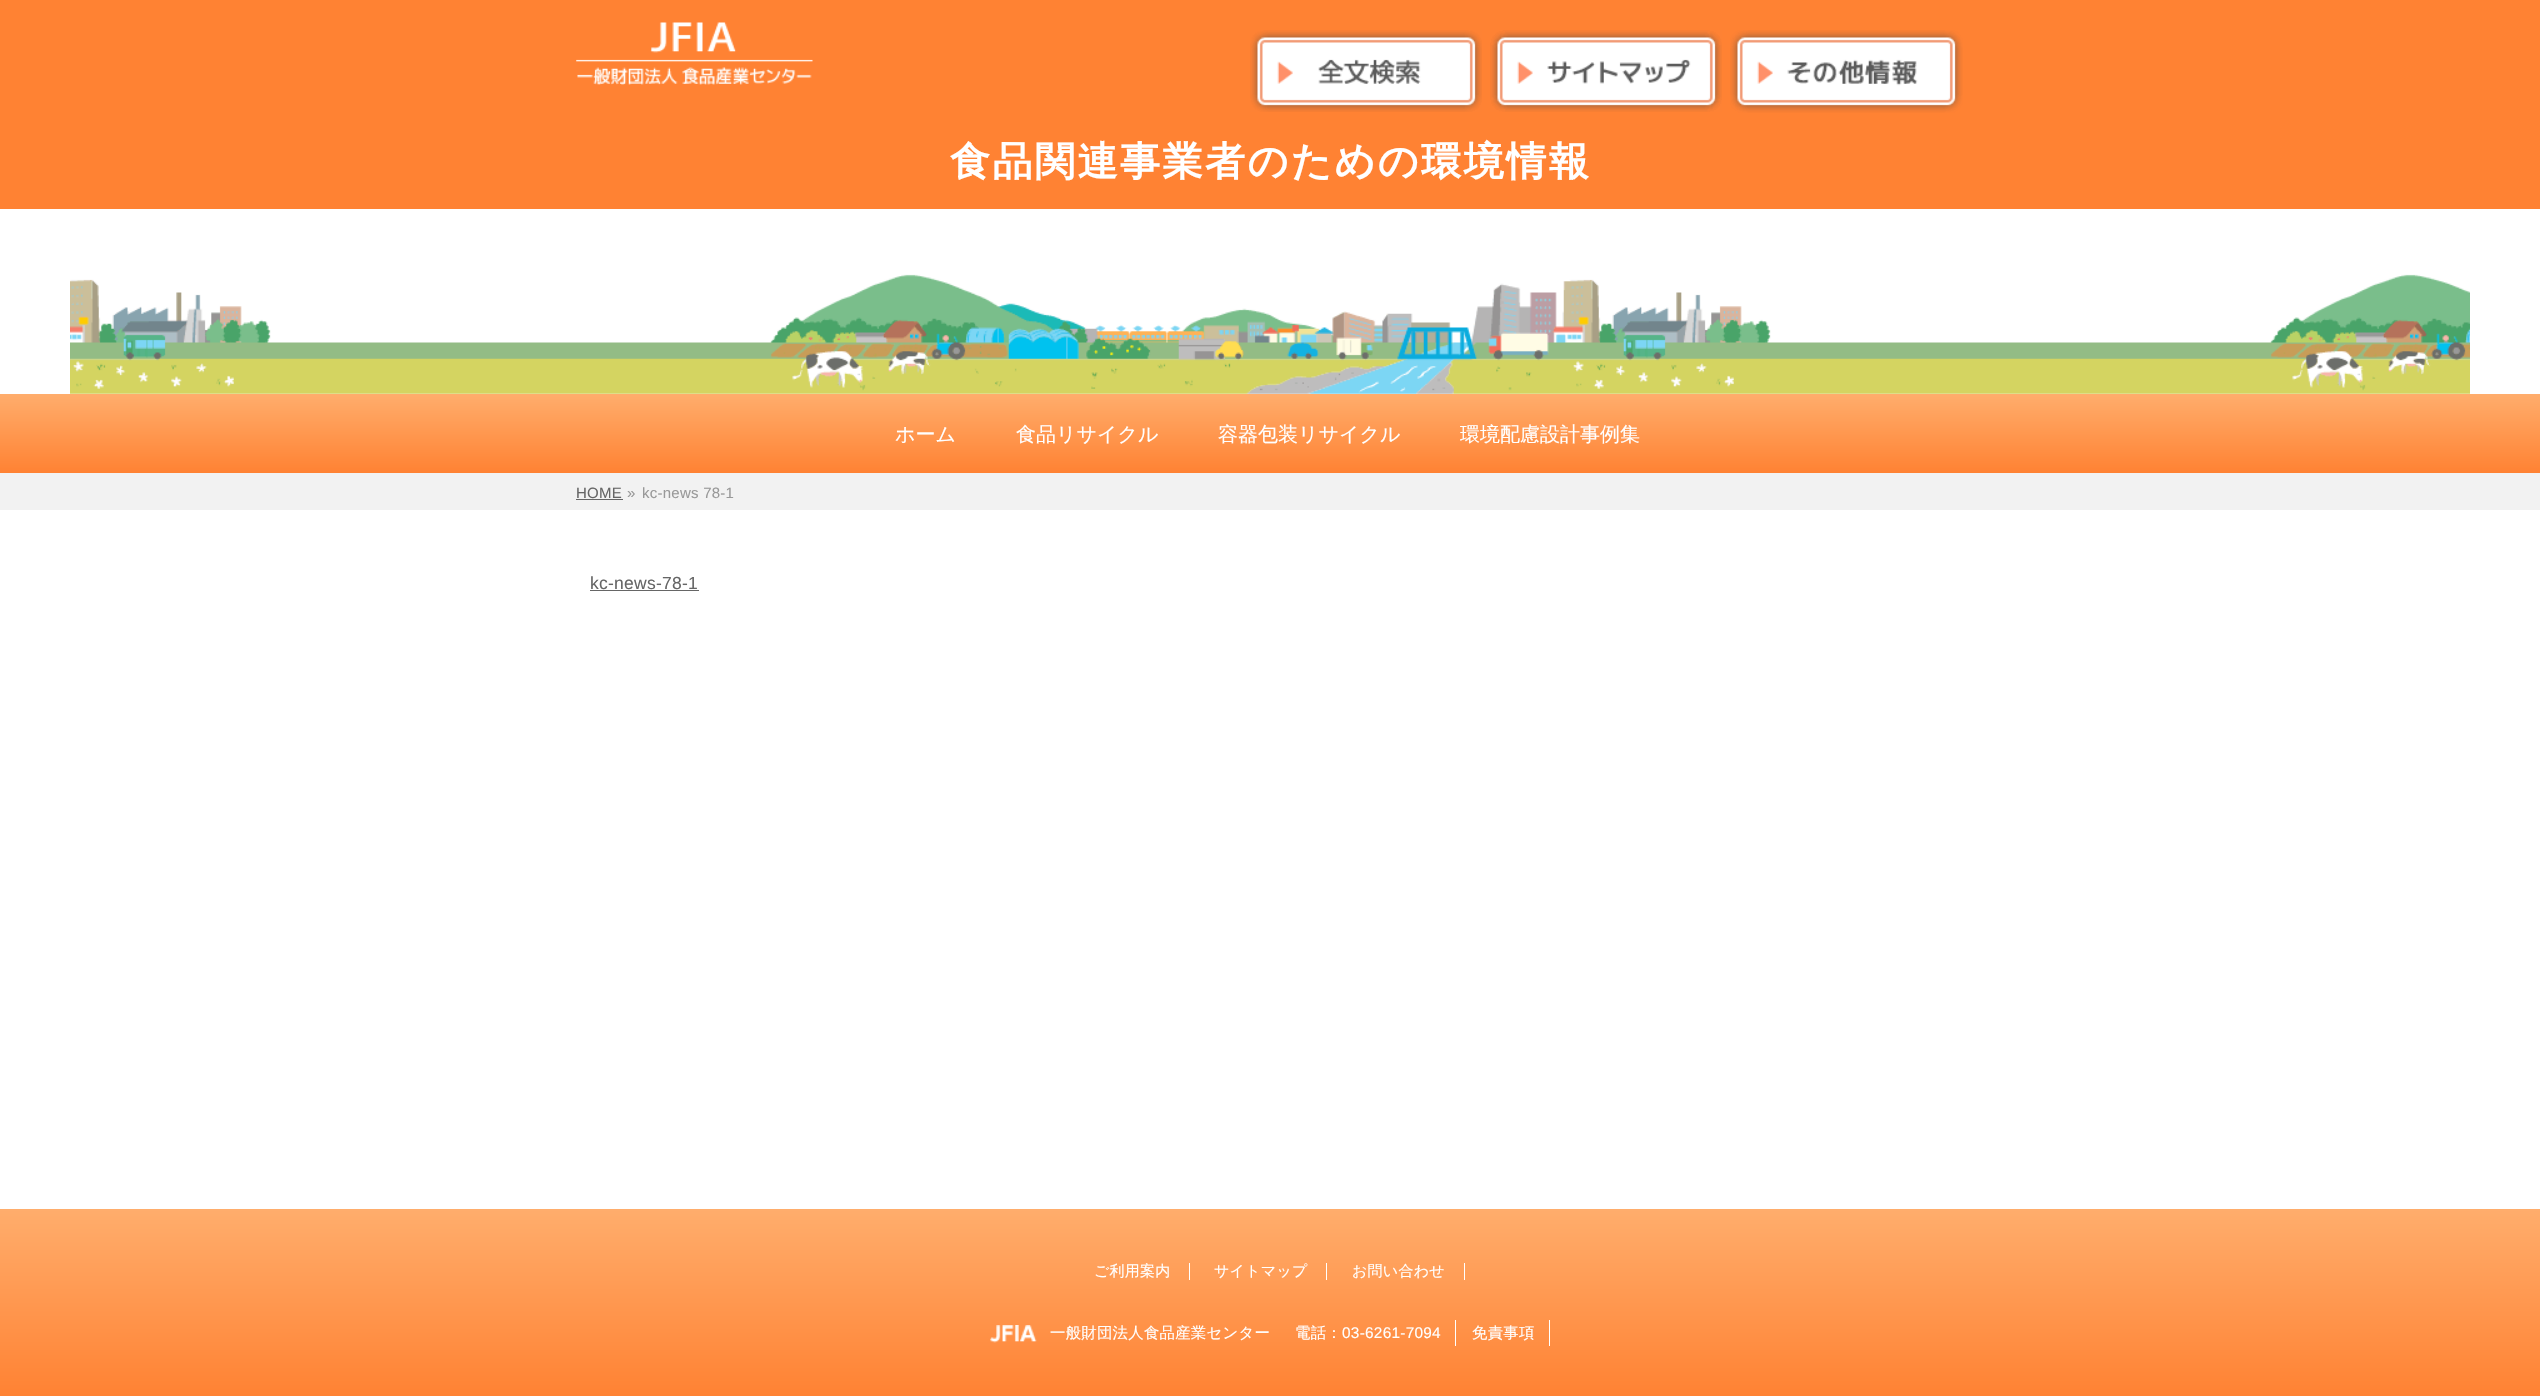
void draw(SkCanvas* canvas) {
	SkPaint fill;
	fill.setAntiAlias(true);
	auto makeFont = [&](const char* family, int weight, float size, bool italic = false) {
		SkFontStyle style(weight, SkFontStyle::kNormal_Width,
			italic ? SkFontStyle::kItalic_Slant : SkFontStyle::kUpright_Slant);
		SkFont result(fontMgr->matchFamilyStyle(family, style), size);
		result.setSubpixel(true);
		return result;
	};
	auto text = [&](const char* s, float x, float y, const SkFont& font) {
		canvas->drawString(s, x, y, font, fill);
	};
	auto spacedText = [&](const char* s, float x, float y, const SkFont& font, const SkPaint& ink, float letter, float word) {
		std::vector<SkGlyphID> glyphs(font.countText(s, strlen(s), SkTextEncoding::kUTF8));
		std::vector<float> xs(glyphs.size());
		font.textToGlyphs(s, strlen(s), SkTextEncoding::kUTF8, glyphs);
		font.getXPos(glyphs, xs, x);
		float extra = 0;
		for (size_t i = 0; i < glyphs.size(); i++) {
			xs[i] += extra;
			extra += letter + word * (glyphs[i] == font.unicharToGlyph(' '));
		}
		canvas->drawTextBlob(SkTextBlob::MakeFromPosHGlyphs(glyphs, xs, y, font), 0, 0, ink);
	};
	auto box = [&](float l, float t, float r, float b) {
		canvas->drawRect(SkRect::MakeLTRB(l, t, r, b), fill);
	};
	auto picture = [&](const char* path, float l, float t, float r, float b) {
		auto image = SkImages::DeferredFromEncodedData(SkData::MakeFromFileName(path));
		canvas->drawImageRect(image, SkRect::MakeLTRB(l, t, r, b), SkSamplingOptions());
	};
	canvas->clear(0xFFFFFFFF);
	fill.setColor(0xFFFF8233);
	box(0, 0, 2540, 209);
	picture("image0.png", 576, 22, 813, 85);
	picture("image1.png", 1250, 30, 1482, 112);
	picture("image2.png", 1490, 30, 1722, 112);
	picture("image3.png", 1730, 30, 1963, 113);
	picture("image4.png", 70, 274, 2470, 394);
	{
		const SkColor colors[] = {0xFFFFAD6C, 0xFFFF8233};
		const float stops[] = {0, 1};
		const SkPoint ends[] = {{1270, 394}, {1270, 473}};
		fill.setShader(SkGradientShader::MakeLinear(ends, colors, stops, 2, SkTileMode::kClamp));
		fill.setAlpha(255);
	}
	box(0, 394, 2540, 473);
	fill.setShader(nullptr);
	fill.setColor(0xFFF2F2F2);
	box(0, 473, 2540, 510);
	fill.setColor(0xFF666666);
	box(576, 499, 623, 500);
	box(590, 590, 699, 591);
	{
		const SkColor colors[] = {0xFFFFAD6C, 0xFFFF8233};
		const float stops[] = {0, 1};
		const SkPoint ends[] = {{1270, 1209}, {1270, 1396}};
		fill.setShader(SkGradientShader::MakeLinear(ends, colors, stops, 2, SkTileMode::kClamp));
		fill.setAlpha(255);
	}
	box(0, 1209, 2540, 1396);
	fill.setShader(nullptr);
	fill.setColor(0xFFFFFFFF);
	box(1189, 1263, 1190, 1280);
	box(1326, 1263, 1327, 1280);
	box(1464, 1263, 1465, 1280);
	picture("image5.png", 990, 1325, 1037, 1343);
	box(1549, 1320, 1550, 1346);
	box(1455, 1320, 1456, 1346);
	auto font1 = makeFont("WenQuanYi Zen Hei", 700, 40);
	spacedText("食品関連事業者のための環境情報", 950, 175, font1, fill, 2.5f, 0);
	auto font2 = makeFont("WenQuanYi Zen Hei", 500, 20);
	text("ホーム", 895, 441, font2);
	text("食品リサイクル", 1016, 441, font2);
	text("容器包装リサイクル", 1218, 441, font2);
	text("環境配慮設計事例集", 1460, 441, font2);
	auto font3 = makeFont("Liberation Sans", 400, 15);
	fill.setColor(0xFF666666);
	spacedText("HOME", 576, 498, font3, fill, 0.25f, 0);
	fill.setColor(0xFF999999);
	spacedText("»", 627, 498, font3, fill, 0.25f, 0);
	spacedText("kc-news 78-1", 642, 498, font3, fill, 0.25f, 0);
	auto font4 = makeFont("Liberation Sans", 400, 17.5f);
	fill.setColor(0xFF666666);
	spacedText("kc-news-78-1", 590, 589, font4, fill, 0.25f, 0);
	auto font5 = makeFont("WenQuanYi Zen Hei", 500, 15);
	fill.setColor(0xFFFFFFFF);
	spacedText("ご利用案内", 1094, 1276, font5, fill, 0.25f, 0);
	spacedText("サイトマップ", 1214, 1276, font5, fill, 0.25f, 0);
	spacedText("お問い合わせ", 1352, 1276, font5, fill, 0.25f, 0);
	auto font6 = makeFont("WenQuanYi Zen Hei", 500, 15.4f);
	spacedText("一般財団法人食品産業センター", 1050, 1338, font6, fill, 0.25f, 0);
	spacedText("電話：", 1295, 1338, font6, fill, 0.25f, 0);
	auto font7 = makeFont("Liberation Sans", 400, 15.4f);
	spacedText("03-6261-7094", 1342, 1338, font7, fill, 0.25f, 0);
	spacedText("免責事項", 1472, 1338, font6, fill, 0.25f, 0);
}
